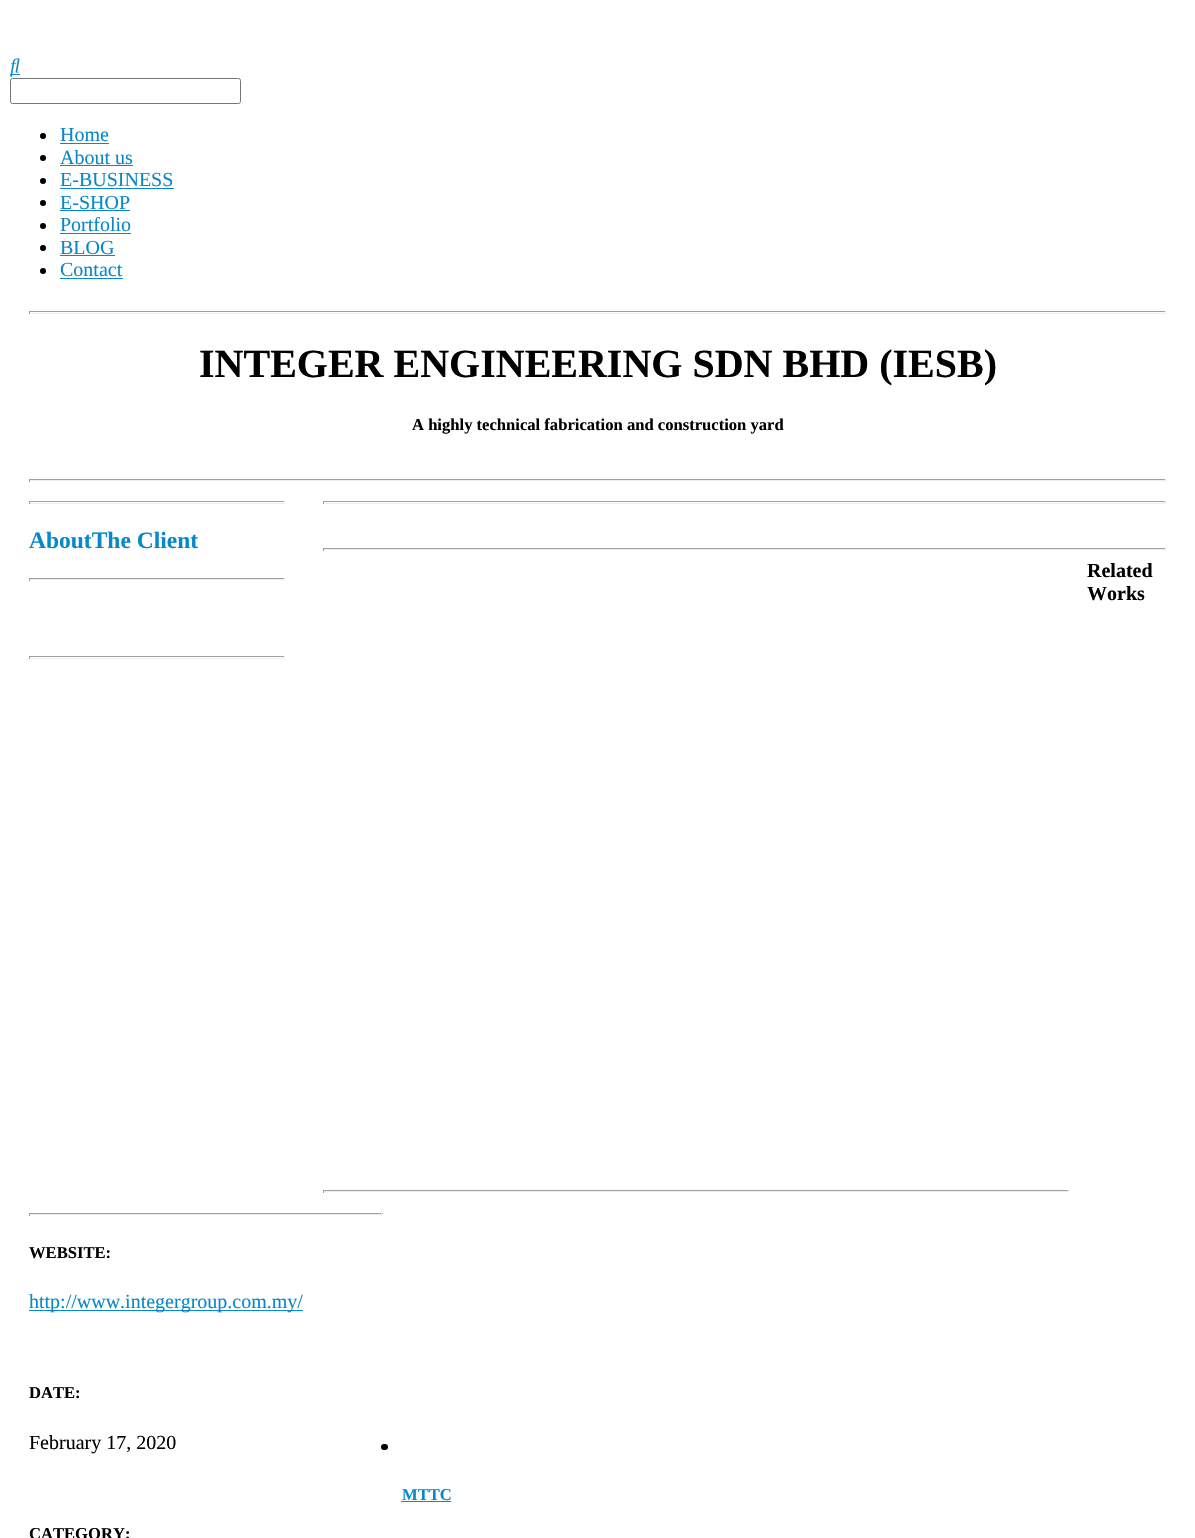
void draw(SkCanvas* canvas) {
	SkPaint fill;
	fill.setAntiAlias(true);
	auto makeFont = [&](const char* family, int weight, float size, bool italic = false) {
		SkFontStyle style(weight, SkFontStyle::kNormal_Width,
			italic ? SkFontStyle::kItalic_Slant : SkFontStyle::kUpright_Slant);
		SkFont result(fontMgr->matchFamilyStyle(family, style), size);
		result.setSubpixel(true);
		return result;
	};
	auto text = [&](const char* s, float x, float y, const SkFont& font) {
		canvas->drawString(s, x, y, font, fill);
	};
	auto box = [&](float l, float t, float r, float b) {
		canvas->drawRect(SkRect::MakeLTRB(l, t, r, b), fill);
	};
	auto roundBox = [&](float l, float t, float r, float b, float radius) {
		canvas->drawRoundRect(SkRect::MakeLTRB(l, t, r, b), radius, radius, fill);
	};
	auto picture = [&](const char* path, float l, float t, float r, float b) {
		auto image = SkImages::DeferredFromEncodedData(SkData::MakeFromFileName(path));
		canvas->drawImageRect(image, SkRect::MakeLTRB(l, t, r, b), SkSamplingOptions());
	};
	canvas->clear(0xFFFFFFFF);
	fill.setColor(0xFF0888CA);
	box(10, 74, 20, 75);
	picture("image0.png", 10, 58, 20, 77);
	fill.setStyle(SkPaint::kStroke_Style);
	fill.setStrokeWidth(1);
	fill.setColor(0xFF767676);
	canvas->drawRoundRect(SkRect::MakeLTRB(10.5f, 78.5f, 240.5f, 103.5f), 2, 2, fill);
	fill.setStyle(SkPaint::kFill_Style);
	fill.setColor(0xFF000000);
	canvas->drawCircle(43, 136, 3, fill);
	fill.setColor(0xFF0888CA);
	box(60, 143, 109, 144);
	fill.setColor(0xFF000000);
	canvas->drawCircle(43, 158, 3, fill);
	fill.setColor(0xFF0888CA);
	box(60, 165, 133, 166);
	fill.setColor(0xFF000000);
	canvas->drawCircle(43, 181, 3, fill);
	fill.setColor(0xFF0888CA);
	box(60, 188, 174, 189);
	fill.setColor(0xFF000000);
	canvas->drawCircle(43, 203, 3, fill);
	fill.setColor(0xFF0888CA);
	box(60, 210, 130, 211);
	fill.setColor(0xFF000000);
	canvas->drawCircle(43, 226, 3, fill);
	fill.setColor(0xFF0888CA);
	box(60, 233, 131, 234);
	fill.setColor(0xFF000000);
	canvas->drawCircle(43, 248, 3, fill);
	fill.setColor(0xFF0888CA);
	box(60, 255, 115, 256);
	fill.setColor(0xFF000000);
	canvas->drawCircle(43, 271, 3, fill);
	fill.setColor(0xFF0888CA);
	box(60, 278, 123, 279);
	fill.setColor(0xFF9F9F9F);
	box(29, 311, 1166, 312);
	fill.setColor(0xFFEEEEEE);
	box(1165, 311, 1166, 314);
	box(29, 313, 1166, 314);
	fill.setColor(0xFF9F9F9F);
	box(29, 311, 30, 314);
	box(29, 479, 1166, 480);
	fill.setColor(0xFFEEEEEE);
	box(1165, 479, 1166, 482);
	box(29, 480, 1166, 481);
	fill.setColor(0xFF9F9F9F);
	box(29, 479, 30, 482);
	box(29, 501, 285, 502);
	fill.setColor(0xFFEEEEEE);
	box(284, 501, 285, 504);
	box(29, 503, 285, 504);
	fill.setColor(0xFF9F9F9F);
	box(29, 501, 30, 504);
	box(29, 578, 285, 579);
	fill.setColor(0xFFEEEEEE);
	box(284, 578, 285, 581);
	box(29, 579, 285, 580);
	fill.setColor(0xFF9F9F9F);
	box(29, 578, 30, 581);
	box(29, 656, 285, 657);
	fill.setColor(0xFFEEEEEE);
	box(284, 656, 285, 659);
	box(29, 658, 285, 659);
	fill.setColor(0xFF9F9F9F);
	box(29, 656, 30, 659);
	box(323, 501, 1166, 502);
	fill.setColor(0xFFEEEEEE);
	box(1165, 501, 1166, 504);
	box(323, 503, 1166, 504);
	fill.setColor(0xFF9F9F9F);
	box(323, 501, 324, 504);
	box(323, 548, 1166, 549);
	fill.setColor(0xFFEEEEEE);
	box(1165, 548, 1166, 551);
	box(323, 549, 1166, 550);
	fill.setColor(0xFF9F9F9F);
	box(323, 548, 324, 551);
	box(323, 1190, 1069, 1191);
	fill.setColor(0xFFEEEEEE);
	box(1068, 1190, 1069, 1193);
	box(323, 1191, 1069, 1192);
	fill.setColor(0xFF9F9F9F);
	box(323, 1190, 324, 1193);
	box(29, 1213, 383, 1214);
	fill.setColor(0xFFEEEEEE);
	box(381, 1213, 382, 1216);
	box(29, 1214, 383, 1215);
	fill.setColor(0xFF9F9F9F);
	box(29, 1213, 30, 1216);
	fill.setColor(0xFF0888CA);
	box(29, 1310, 303, 1311);
	fill.setColor(0xFF000000);
	roundBox(381, 1444, 388, 1450, 3);
	fill.setColor(0xFF0888CA);
	box(401, 1501, 451, 1502);
	auto font1 = makeFont("Liberation Serif", 400, 20);
	text("Home", 60, 141, font1);
	text("About us", 60, 164, font1);
	text("E-BUSINESS", 60, 186, font1);
	text("E-SHOP", 60, 209, font1);
	text("Portfolio", 60, 231, font1);
	text("BLOG", 60, 254, font1);
	text("Contact", 60, 276, font1);
	auto font2 = makeFont("Liberation Serif", 700, 40);
	fill.setColor(0xFF000000);
	text("INTEGER ENGINEERING SDN BHD (IESB)", 199, 377, font2);
	auto font3 = makeFont("Liberation Serif", 700, 16.6f);
	text("A highly technical fabrication and construction yard", 412, 430, font3);
	auto font4 = makeFont("Liberation Serif", 700, 23.5f);
	fill.setColor(0xFF0888CA);
	text("AboutThe Client", 29, 548, font4);
	fill.setColor(0xFF000000);
	text("WEBSITE:", 29, 1258, font3);
	fill.setColor(0xFF0888CA);
	text("http://www.integergroup.com.my/", 29, 1308, font1);
	fill.setColor(0xFF000000);
	text("DATE:", 29, 1398, font3);
	text("February 17, 2020", 29, 1449, font1);
	text("CATEGORY:", 29, 1539, font3);
	auto font5 = makeFont("Liberation Serif", 700, 20);
	text("Related", 1087, 577, font5);
	text("Works", 1087, 600, font5);
	fill.setColor(0xFF0888CA);
	text("MTTC", 402, 1500, font3);
}
